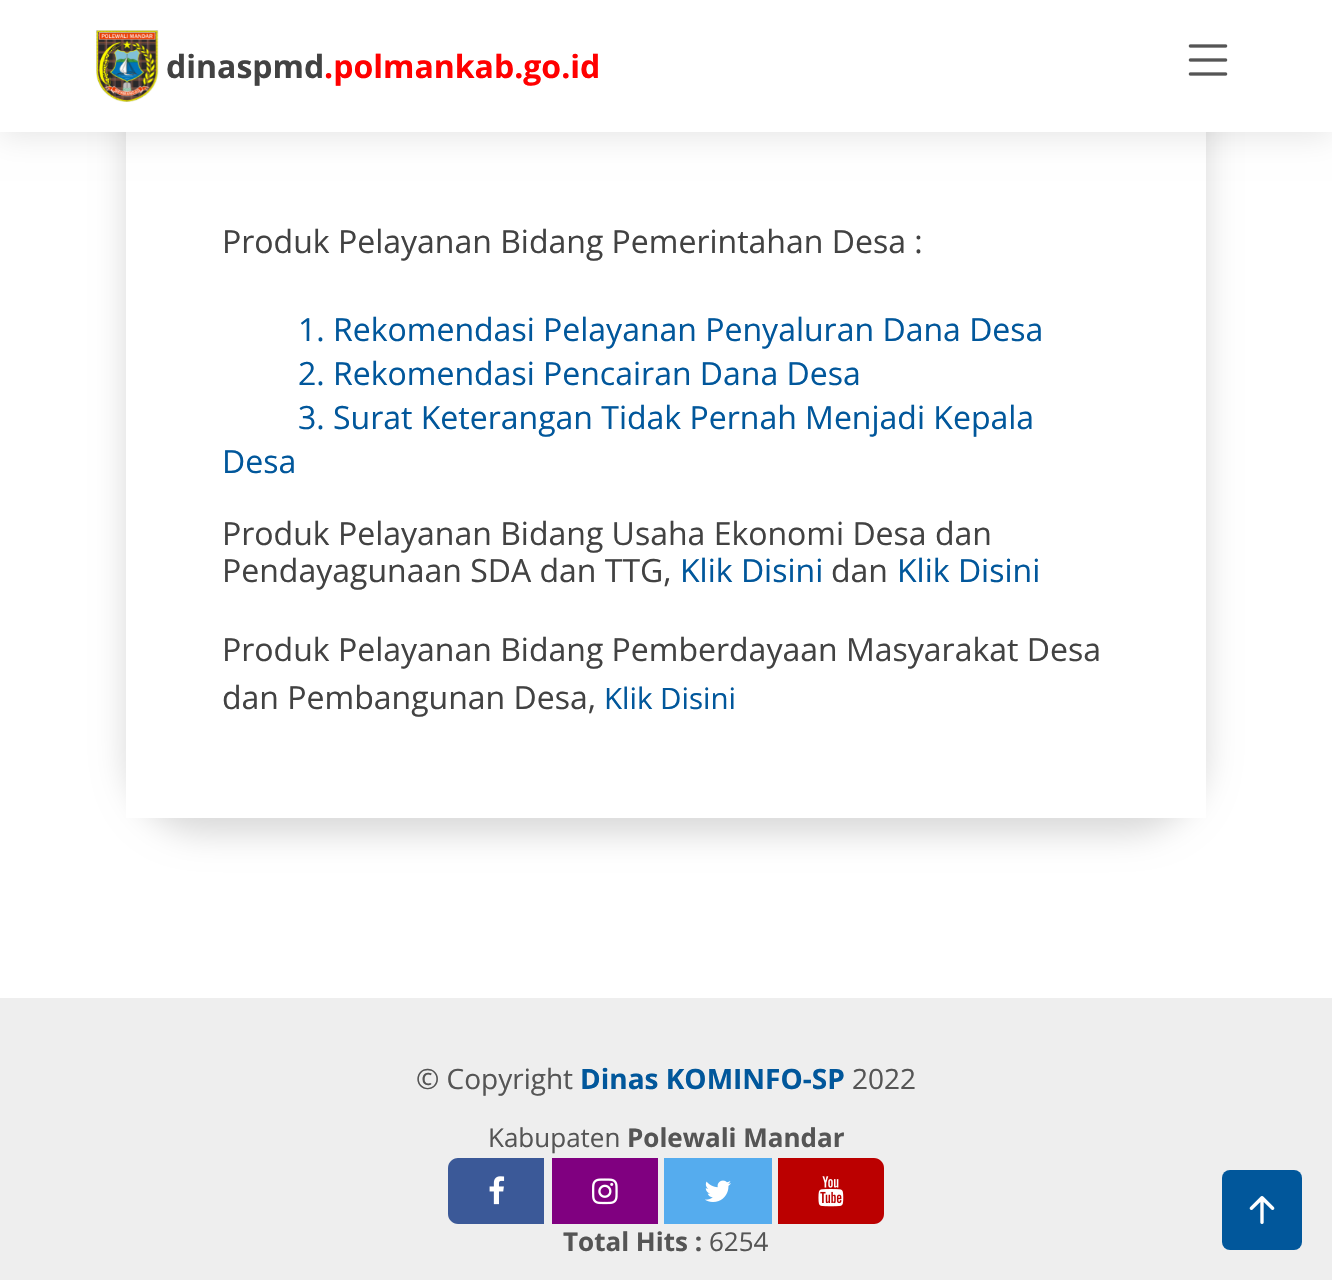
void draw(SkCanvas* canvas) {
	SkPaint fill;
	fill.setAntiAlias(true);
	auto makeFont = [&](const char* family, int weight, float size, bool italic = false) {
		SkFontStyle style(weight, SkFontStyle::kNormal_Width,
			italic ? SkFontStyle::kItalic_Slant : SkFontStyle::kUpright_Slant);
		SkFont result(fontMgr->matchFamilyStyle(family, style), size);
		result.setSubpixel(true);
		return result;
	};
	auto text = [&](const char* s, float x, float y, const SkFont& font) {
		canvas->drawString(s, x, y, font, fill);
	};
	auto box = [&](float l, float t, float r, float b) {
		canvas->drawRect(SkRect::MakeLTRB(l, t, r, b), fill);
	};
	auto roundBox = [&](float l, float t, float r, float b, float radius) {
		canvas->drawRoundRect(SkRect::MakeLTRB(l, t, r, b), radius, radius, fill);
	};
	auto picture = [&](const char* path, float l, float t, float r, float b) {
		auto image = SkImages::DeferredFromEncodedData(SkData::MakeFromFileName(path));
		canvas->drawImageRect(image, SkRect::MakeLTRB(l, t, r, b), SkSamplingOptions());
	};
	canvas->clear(0xFFFFFFFF);
	fill.setColor(0x26000000);
	fill.setMaskFilter(SkMaskFilter::MakeBlur(kNormal_SkBlurStyle, 16));
	canvas->drawRoundRect(SkRect::MakeLTRB(126, -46, 1206, 834), 80, 80, fill);
	fill.setMaskFilter(nullptr);
	fill.setColor(0xFFFFFFFF);
	box(126, 132, 1206, 818);
	fill.setColor(0x1A000000);
	fill.setMaskFilter(SkMaskFilter::MakeBlur(kNormal_SkBlurStyle, 15));
	canvas->drawRect(SkRect::MakeLTRB(0, 4, 1332, 136), fill);
	fill.setMaskFilter(nullptr);
	fill.setColor(0xFFFFFFFF);
	box(0, 0, 1332, 132);
	picture("image0.png", 96, 30, 159, 102);
	picture("image1.png", 1188, 44, 1228, 76);
	fill.setColor(0xFFEEEEEE);
	box(0, 998, 1332, 1280);
	fill.setColor(0xFF3B5998);
	canvas->drawPath(SkPathBuilder().moveTo(458, 1158).lineTo(544, 1158).lineTo(544, 1224).lineTo(458, 1224).cubicTo(452.5f, 1224, 448, 1219.5f, 448, 1214).lineTo(448, 1168).cubicTo(448, 1162.5f, 452.5f, 1158, 458, 1158).close().detach(), fill);
	picture("image2.png", 489, 1176, 505, 1205);
	fill.setColor(0xFF800080);
	box(552, 1158, 658, 1224);
	picture("image3.png", 592, 1178, 618, 1205);
	fill.setColor(0xFF55ACEE);
	box(664, 1158, 772, 1224);
	picture("image4.png", 705, 1180, 731, 1202);
	fill.setColor(0xFFBB0000);
	canvas->drawPath(SkPathBuilder().moveTo(778, 1158).lineTo(874, 1158).cubicTo(879.5f, 1158, 884, 1162.5f, 884, 1168).lineTo(884, 1214).cubicTo(884, 1219.5f, 879.5f, 1224, 874, 1224).lineTo(778, 1224).close().detach(), fill);
	picture("image5.png", 818, 1176, 844, 1207);
	fill.setColor(0xFF01579B);
	roundBox(1222, 1170, 1302, 1250, 8);
	picture("image6.png", 1249, 1196, 1275, 1224);
	auto font1 = makeFont("Open Sans", 700, 32);
	fill.setColor(0xFF424242);
	text("dinaspmd", 166, 78, font1);
	fill.setColor(0xFFFF0000);
	text(".polmankab.go.id", 324, 78, font1);
	auto font2 = makeFont("Open Sans", 400, 32);
	fill.setColor(0xFF424242);
	text("Produk Pelayanan Bidang Pemerintahan Desa :", 222, 253, font2);
	fill.setColor(0xFF01579B);
	text("1. Rekomendasi Pelayanan Penyaluran Dana Desa", 298, 341, font2);
	text("2. Rekomendasi Pencairan Dana Desa", 298, 385, font2);
	text("3. Surat Keterangan Tidak Pernah Menjadi Kepala", 298, 429, font2);
	text("Desa", 222, 473, font2);
	fill.setColor(0xFF424242);
	text("Produk Pelayanan Bidang Usaha Ekonomi Desa dan", 222, 545, font2);
	text("Pendayagunaan SDA dan TTG,", 222, 582, font2);
	fill.setColor(0xFF01579B);
	text("Klik Disini", 680, 582, font2);
	fill.setColor(0xFF424242);
	text("dan", 831, 582, font2);
	fill.setColor(0xFF01579B);
	text("Klik Disini", 897, 582, font2);
	fill.setColor(0xFF424242);
	text("Produk Pelayanan Bidang Pemberdayaan Masyarakat Desa", 222, 661, font2);
	text("dan Pembangunan Desa,", 222, 709, font2);
	auto font3 = makeFont("Open Sans", 400, 29.5f);
	fill.setColor(0xFF01579B);
	text("Klik Disini", 604, 709, font3);
	auto font4 = makeFont("Open Sans", 400, 28);
	fill.setColor(0xFF555555);
	text("© Copyright", 416, 1089, font4);
	auto font5 = makeFont("Open Sans", 700, 28);
	fill.setColor(0xFF01579B);
	text("Dinas KOMINFO-SP", 580, 1089, font5);
	fill.setColor(0xFF555555);
	text("2022", 852, 1089, font4);
	auto font6 = makeFont("Open Sans", 400, 26);
	text("Kabupaten", 488, 1147, font6);
	auto font7 = makeFont("Open Sans", 700, 26);
	text("Polewali Mandar", 627, 1147, font7);
	text("Total Hits :", 563, 1251, font7);
	text("6254", 709, 1251, font6);
}
